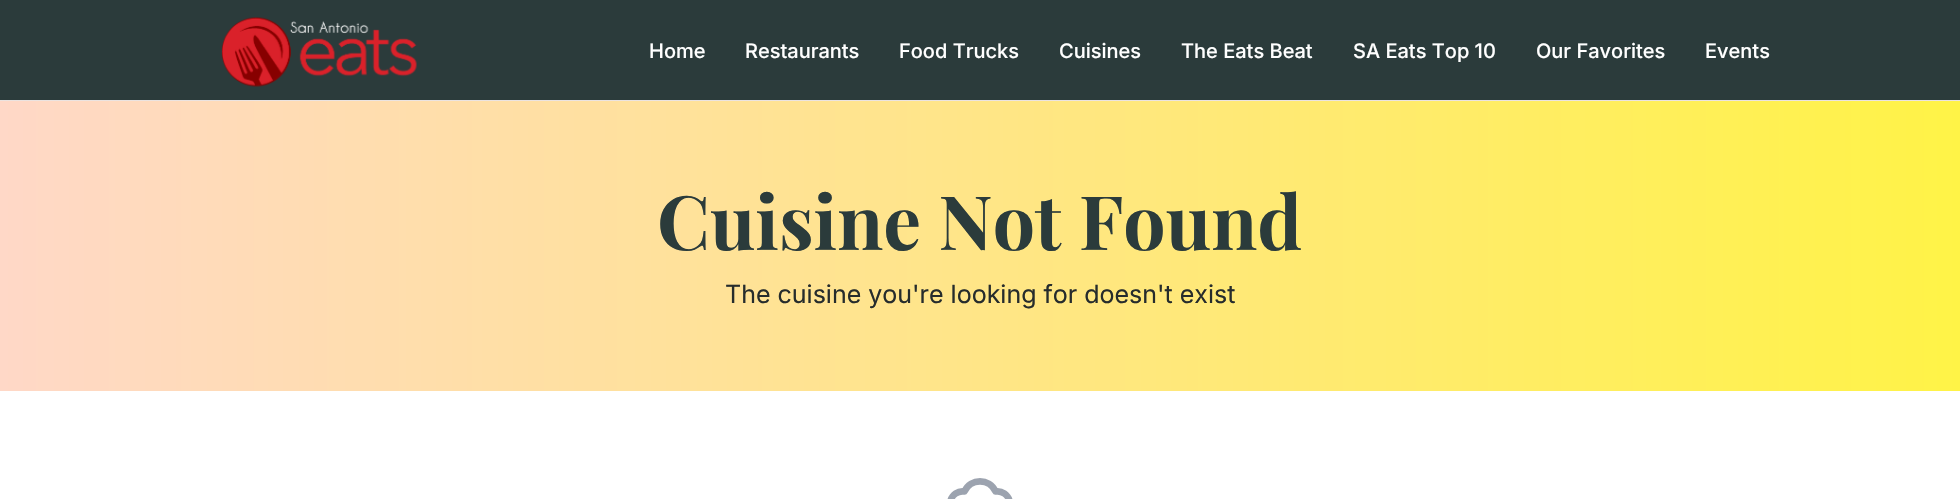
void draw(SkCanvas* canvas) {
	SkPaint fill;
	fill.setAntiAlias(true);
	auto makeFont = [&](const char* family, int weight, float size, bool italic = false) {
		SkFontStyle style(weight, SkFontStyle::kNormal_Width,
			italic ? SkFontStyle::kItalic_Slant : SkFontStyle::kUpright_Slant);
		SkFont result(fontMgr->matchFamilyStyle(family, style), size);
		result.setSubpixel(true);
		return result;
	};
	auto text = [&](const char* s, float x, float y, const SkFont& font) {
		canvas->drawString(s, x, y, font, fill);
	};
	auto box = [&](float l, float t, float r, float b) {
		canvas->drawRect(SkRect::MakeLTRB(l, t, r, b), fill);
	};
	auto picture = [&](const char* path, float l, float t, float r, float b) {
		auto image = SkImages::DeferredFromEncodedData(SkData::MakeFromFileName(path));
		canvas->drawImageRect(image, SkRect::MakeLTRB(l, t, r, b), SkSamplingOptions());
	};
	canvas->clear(0xFFFFFFFF);
	fill.setColor(0xFF2B3B3B);
	box(0, 0, 1960, 100);
	fill.setColor(0xFFEBE3E0);
	box(0, 100, 1960, 101);
	picture("image0.png", 221, 17, 417, 87);
	{
		const SkColor colors[] = {0xFFFFD8C7, 0xFFFFF347};
		const float stops[] = {0, 1};
		const SkPoint ends[] = {{0, 246}, {1960, 246}};
		fill.setShader(SkGradientShader::MakeLinear(ends, colors, stops, 2, SkTileMode::kClamp));
		fill.setAlpha(255);
	}
	box(0, 101, 1960, 391);
	fill.setStyle(SkPaint::kStroke_Style);
	fill.setStrokeWidth(6.7f);
	fill.setStrokeCap(SkPaint::kRound_Cap);
	fill.setStrokeJoin(SkPaint::kRound_Join);
	fill.setShader(nullptr);
	fill.setColor(0xFF9CA3AF);
	canvas->drawPath(SkPathBuilder().moveTo(996.5f, 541).cubicTo(998.5f, 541, 1000, 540, 1000, 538).lineTo(1000, 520).cubicTo(1000, 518.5f, 1001, 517.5f, 1002.5f, 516.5f).cubicTo(1008.5f, 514, 1011.5f, 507, 1009.5f, 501).cubicTo(1008, 494.5f, 1002, 490.5f, 995.5f, 491.5f).cubicTo(989.5f, 478, 970.5f, 478, 964.5f, 491.5f).cubicTo(958, 490.5f, 952, 494.5f, 950.5f, 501).cubicTo(948.5f, 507, 951.5f, 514, 957.5f, 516.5f).cubicTo(959, 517.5f, 960, 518.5f, 960, 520).lineTo(960, 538).cubicTo(960, 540, 961.5f, 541, 963.5f, 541).close().detach(), fill);
	auto font1 = makeFont("Inter", 500, 20);
	fill.setStyle(SkPaint::kFill_Style);
	fill.setColor(0xFFFFFFFF);
	text("Home", 649, 58, font1);
	text("Restaurants", 745, 58, font1);
	text("Food Trucks", 899, 58, font1);
	text("Cuisines", 1059, 58, font1);
	text("The Eats Beat", 1181, 58, font1);
	text("SA Eats Top 10", 1353, 58, font1);
	text("Our Favorites", 1536, 58, font1);
	text("Events", 1705, 58, font1);
	auto font2 = makeFont("Playfair Display", 700, 75);
	fill.setColor(0xFF2B3B3B);
	text("Cuisine Not Found", 657, 250, font2);
	auto font3 = makeFont("Inter", 400, 25);
	fill.setColor(0xFF262C2C);
	text("The cuisine you're looking for doesn't exist", 725, 303, font3);
}
